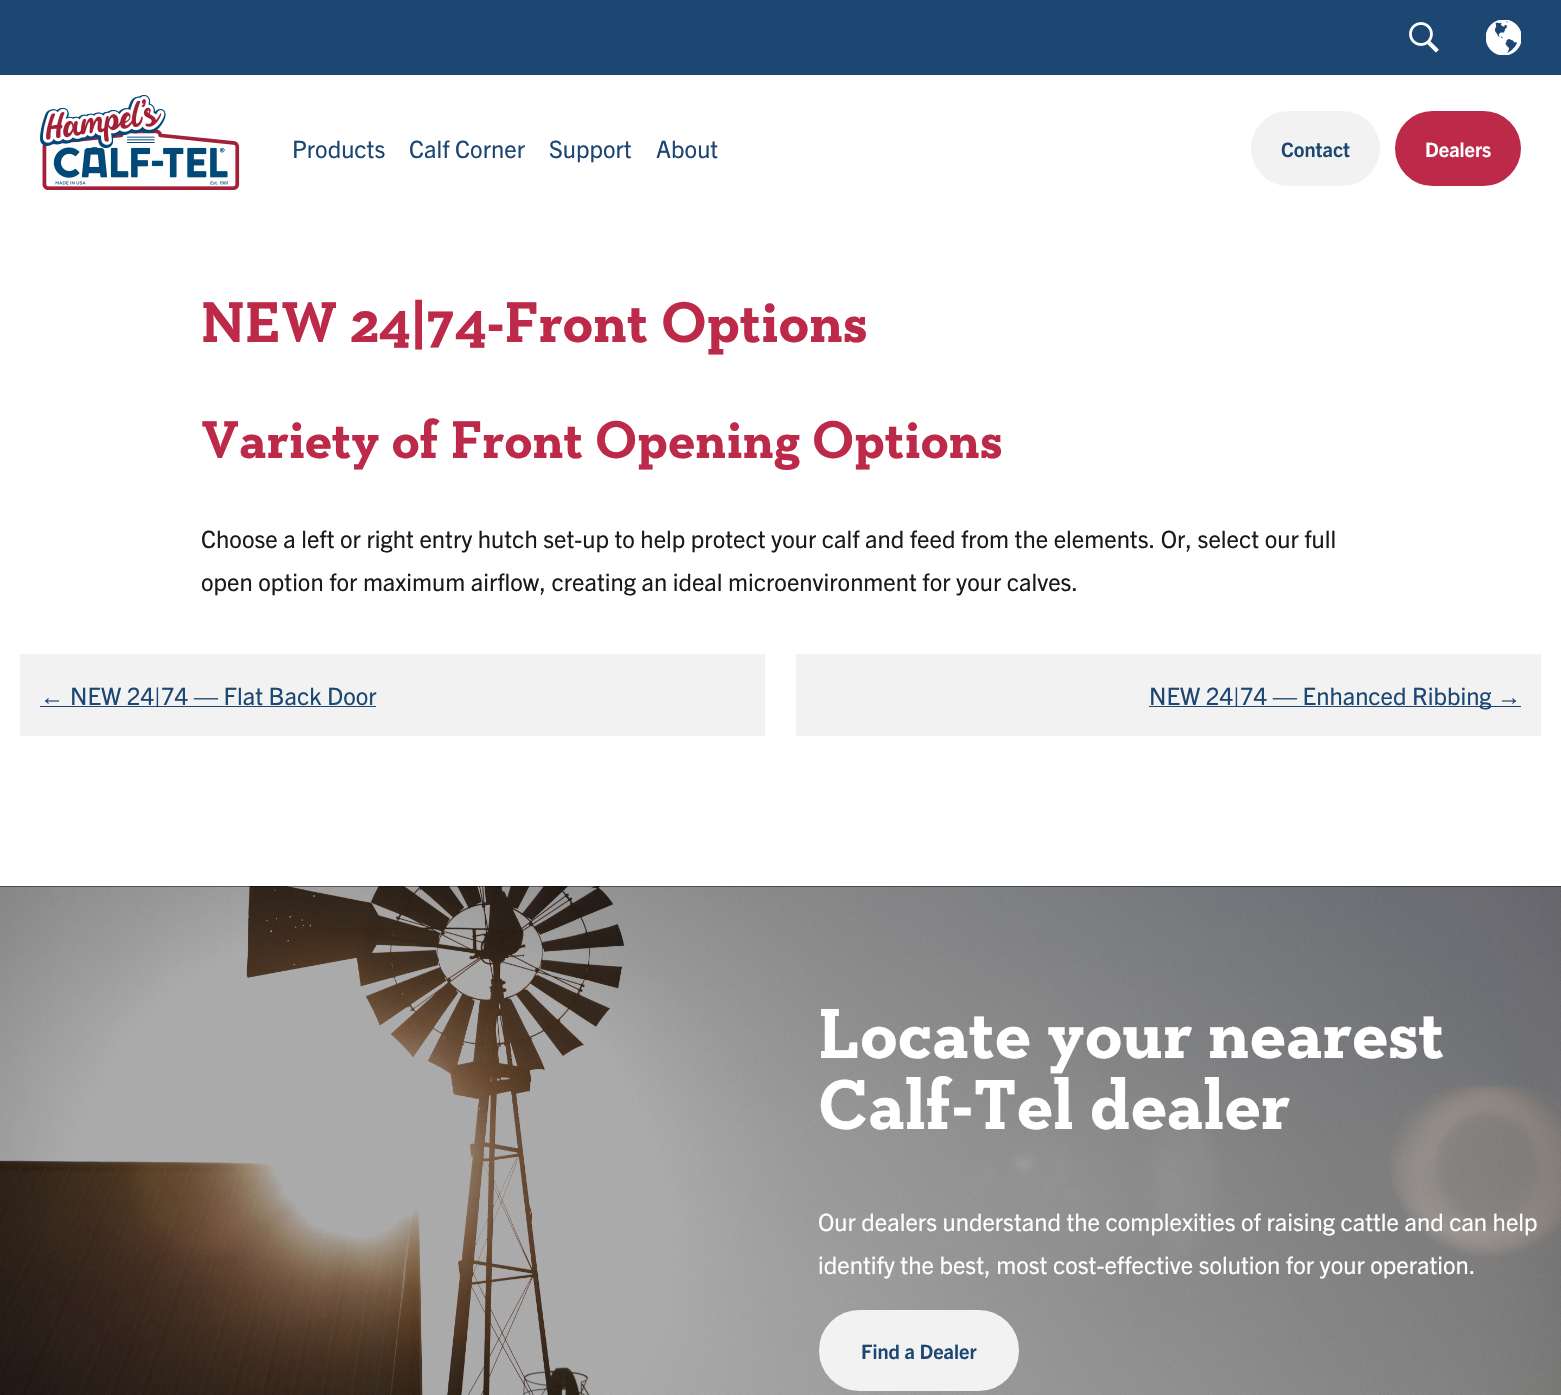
void draw(SkCanvas* canvas) {
	SkPaint fill;
	fill.setAntiAlias(true);
	auto makeFont = [&](const char* family, int weight, float size, bool italic = false) {
		SkFontStyle style(weight, SkFontStyle::kNormal_Width,
			italic ? SkFontStyle::kItalic_Slant : SkFontStyle::kUpright_Slant);
		SkFont result(fontMgr->matchFamilyStyle(family, style), size);
		result.setSubpixel(true);
		return result;
	};
	auto text = [&](const char* s, float x, float y, const SkFont& font) {
		canvas->drawString(s, x, y, font, fill);
	};
	auto box = [&](float l, float t, float r, float b) {
		canvas->drawRect(SkRect::MakeLTRB(l, t, r, b), fill);
	};
	auto roundBox = [&](float l, float t, float r, float b, float radius) {
		canvas->drawRoundRect(SkRect::MakeLTRB(l, t, r, b), radius, radius, fill);
	};
	auto picture = [&](const char* path, float l, float t, float r, float b) {
		auto image = SkImages::DeferredFromEncodedData(SkData::MakeFromFileName(path));
		canvas->drawImageRect(image, SkRect::MakeLTRB(l, t, r, b), SkSamplingOptions());
	};
	canvas->clear(0xFFFFFFFF);
	fill.setColor(0xFF1C4773);
	box(0, 0, 1561, 75);
	picture("image0.png", 1409, 22, 1439, 53);
	picture("image1.png", 1486, 20, 1521, 55);
	picture("image2.png", 40, 95, 240, 190);
	fill.setColor(0xFFF2F2F2);
	roundBox(1251, 111, 1380, 186, 37.5f);
	fill.setColor(0xFFBC2949);
	roundBox(1395, 111, 1521, 186, 37.5f);
	fill.setColor(0xFFF2F2F2);
	box(20, 654, 765, 736);
	fill.setColor(0xFF1C4773);
	box(40, 706, 376, 707);
	fill.setColor(0xFFF2F2F2);
	box(796, 654, 1541, 736);
	fill.setColor(0xFF1C4773);
	box(1149, 706, 1521, 707);
	fill.setColor(0xFF000000);
	box(0, 886, 1561, 887);
	picture("image3.png", 0, 886, 1561, 1395);
	fill.setColor(0xFFF2F2F2);
	canvas->drawRoundRect(SkRect::MakeLTRB(820.5f, 1311.5f, 1017.5f, 1389.5f), 39, 39, fill);
	fill.setStyle(SkPaint::kStroke_Style);
	fill.setStrokeWidth(3);
	canvas->drawRoundRect(SkRect::MakeLTRB(820.5f, 1311.5f, 1017.5f, 1389.5f), 39, 39, fill);
	auto font1 = makeFont("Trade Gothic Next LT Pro", 400, 24);
	fill.setStyle(SkPaint::kFill_Style);
	fill.setColor(0xFF1C4773);
	text("Products", 292, 158, font1);
	text("Calf Corner", 409, 158, font1);
	text("Support", 549, 158, font1);
	text("About", 656, 158, font1);
	auto font2 = makeFont("Trade Gothic Next LT Pro", 700, 20);
	text("Contact", 1281, 157, font2);
	fill.setColor(0xFFFFFFFF);
	text("Dealers", 1425, 157, font2);
	auto font3 = makeFont("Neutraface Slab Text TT", 700, 58.5f);
	fill.setColor(0xFFBC2949);
	text("NEW 24|74-Front Options", 201, 342, font3);
	auto font4 = makeFont("Neutraface Slab Text TT", 700, 54);
	text("Variety of Front Opening Options", 201, 458, font4);
	fill.setColor(0xFF1A1A1A);
	text("Choose a left or right entry hutch set-up to help protect your calf and feed from the elements. Or, select our full", 201, 548, font1);
	text("open option for maximum airflow, creating an ideal microenvironment for your calves.", 201, 591, font1);
	auto font5 = makeFont("Liberation Sans", 400, 24);
	fill.setColor(0xFF1C4773);
	text("←", 40, 705, font5);
	text("NEW 24|74 — Flat Back Door", 70, 705, font1);
	text("NEW 24|74 — Enhanced Ribbing", 1149, 705, font1);
	text("→", 1497, 705, font5);
	auto font6 = makeFont("Neutraface Slab Text TT", 700, 72);
	fill.setColor(0xFFFFFFFF);
	text("Locate your nearest", 818, 1058, font6);
	text("Calf-Tel dealer", 818, 1129, font6);
	text("Our dealers understand the complexities of raising cattle and can help", 818, 1231, font1);
	text("identify the best, most cost-effective solution for your operation.", 818, 1274, font1);
	fill.setColor(0xFF1C4773);
	text("Find a Dealer", 861, 1359, font2);
}
